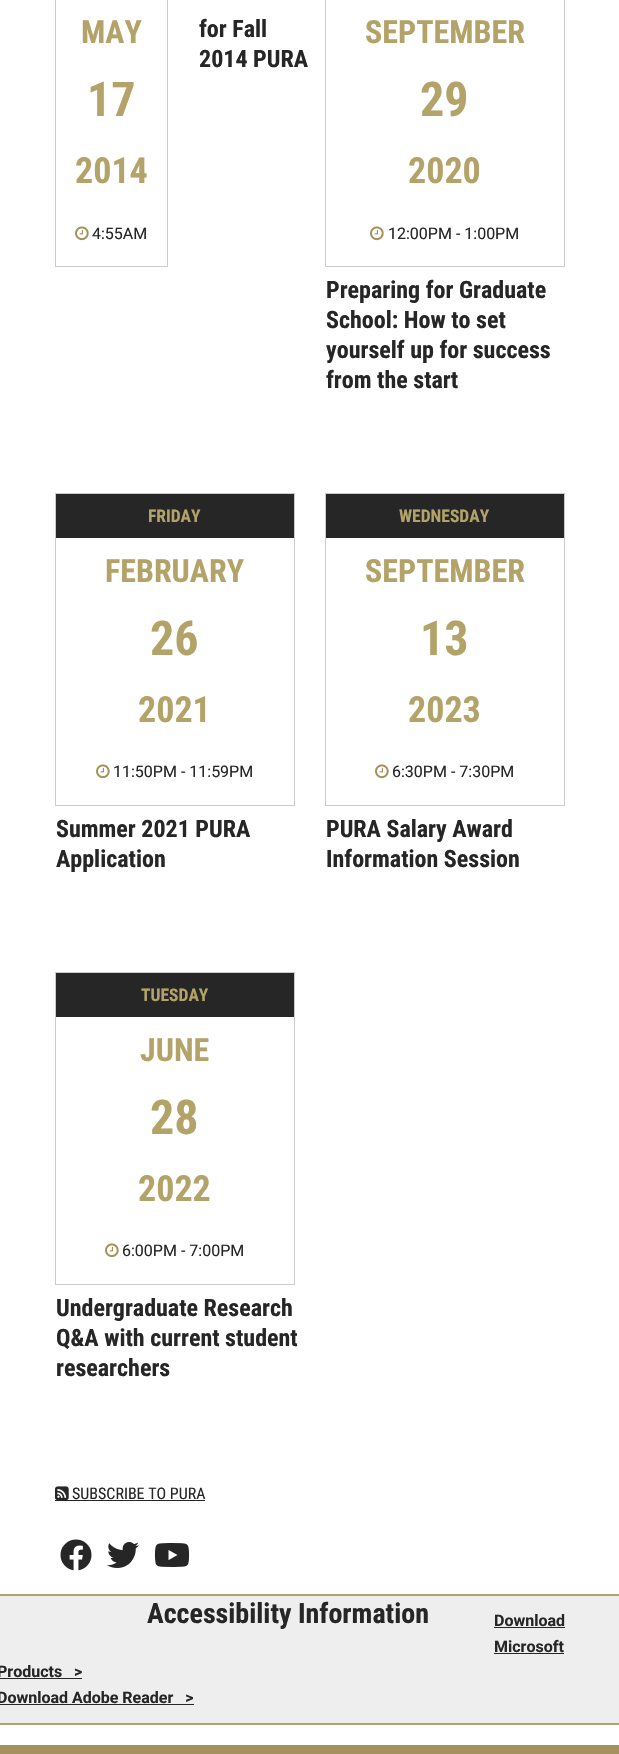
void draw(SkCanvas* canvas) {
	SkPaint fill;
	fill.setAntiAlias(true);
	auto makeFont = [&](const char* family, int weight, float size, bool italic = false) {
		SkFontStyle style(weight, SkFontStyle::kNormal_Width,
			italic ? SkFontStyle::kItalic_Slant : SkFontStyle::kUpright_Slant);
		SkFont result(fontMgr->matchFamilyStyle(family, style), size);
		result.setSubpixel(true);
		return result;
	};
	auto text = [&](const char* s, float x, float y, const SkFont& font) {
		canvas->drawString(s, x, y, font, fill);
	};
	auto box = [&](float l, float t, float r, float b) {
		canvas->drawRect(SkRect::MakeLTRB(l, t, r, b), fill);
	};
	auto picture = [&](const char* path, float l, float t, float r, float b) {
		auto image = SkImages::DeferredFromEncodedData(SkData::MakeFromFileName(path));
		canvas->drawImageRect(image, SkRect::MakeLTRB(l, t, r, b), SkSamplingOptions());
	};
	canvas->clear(0xFFFFFFFF);
	fill.setStyle(SkPaint::kStroke_Style);
	fill.setStrokeWidth(1);
	fill.setColor(0xFFCCCCCC);
	canvas->drawRect(SkRect::MakeLTRB(55.5f, -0.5f, 167.5f, 266.5f), fill);
	picture("image0.png", 75, 226, 89, 241);
	canvas->drawRect(SkRect::MakeLTRB(325.5f, -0.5f, 564.5f, 266.5f), fill);
	picture("image0.png", 370, 226, 384, 241);
	canvas->drawRect(SkRect::MakeLTRB(55.5f, 493.5f, 294.5f, 805.5f), fill);
	fill.setStyle(SkPaint::kFill_Style);
	fill.setColor(0xFF262626);
	box(56, 494, 294, 538);
	picture("image0.png", 96, 764, 110, 779);
	fill.setStyle(SkPaint::kStroke_Style);
	fill.setColor(0xFFCCCCCC);
	canvas->drawRect(SkRect::MakeLTRB(325.5f, 493.5f, 564.5f, 805.5f), fill);
	fill.setStyle(SkPaint::kFill_Style);
	fill.setColor(0xFF262626);
	box(326, 494, 564, 538);
	picture("image0.png", 375, 764, 389, 779);
	fill.setStyle(SkPaint::kStroke_Style);
	fill.setColor(0xFFCCCCCC);
	canvas->drawRect(SkRect::MakeLTRB(55.5f, 972.5f, 294.5f, 1284.5f), fill);
	fill.setStyle(SkPaint::kFill_Style);
	fill.setColor(0xFF262626);
	box(56, 973, 294, 1017);
	picture("image0.png", 105, 1243, 119, 1258);
	picture("image1.png", 55, 1486, 69, 1500);
	box(55, 1500, 205, 1501);
	picture("image2.png", 60, 1539, 92, 1571);
	picture("image3.png", 107, 1542, 139, 1568);
	picture("image4.png", 154, 1543, 190, 1567);
	fill.setColor(0xFFEEEEEE);
	box(0, 1596, 619, 1723);
	fill.setColor(0xFFB3A369);
	box(0, 1594, 619, 1596);
	box(0, 1723, 619, 1725);
	fill.setColor(0xFF262626);
	box(494, 1627, 565, 1628);
	box(494, 1653, 564, 1654);
	box(0, 1678, 82, 1679);
	box(0, 1704, 194, 1705);
	fill.setColor(0xFFA4925A);
	box(0, 1745, 619, 1754);
	auto font1 = makeFont("Roboto Condensed", 700, 32);
	fill.setColor(0xFFB3A369);
	text("MAY", 81, 43, font1);
	auto font2 = makeFont("Roboto Condensed", 700, 48);
	text("17", 87, 116, font2);
	auto font3 = makeFont("Roboto Condensed", 700, 36);
	text("2014", 75, 183, font3);
	auto font4 = makeFont("Roboto", 400, 16);
	fill.setColor(0xFF262626);
	text("4:55AM", 92, 239, font4);
	auto font5 = makeFont("Roboto Condensed", 700, 24);
	text("for Fall", 199, 37, font5);
	text("2014 PURA", 199, 67, font5);
	fill.setColor(0xFFB3A369);
	text("SEPTEMBER", 365, 43, font1);
	text("29", 420, 116, font2);
	text("2020", 408, 183, font3);
	fill.setColor(0xFF262626);
	text("12:00PM - 1:00PM", 388, 239, font4);
	text("Preparing for Graduate", 326, 298, font5);
	text("School: How to set", 326, 328, font5);
	text("yourself up for success", 326, 358, font5);
	text("from the start", 326, 388, font5);
	auto font6 = makeFont("Roboto Condensed", 700, 17.5f);
	fill.setColor(0xFFB3A369);
	text("FRIDAY", 148, 522, font6);
	text("FEBRUARY", 105, 582, font1);
	text("26", 150, 655, font2);
	text("2021", 138, 722, font3);
	fill.setColor(0xFF262626);
	text("11:50PM - 11:59PM", 113, 777, font4);
	text("Summer 2021 PURA", 56, 837, font5);
	text("Application", 56, 867, font5);
	fill.setColor(0xFFB3A369);
	text("WEDNESDAY", 399, 522, font6);
	text("SEPTEMBER", 365, 582, font1);
	text("13", 420, 655, font2);
	text("2023", 408, 722, font3);
	fill.setColor(0xFF262626);
	text("6:30PM - 7:30PM", 392, 777, font4);
	text("PURA Salary Award", 326, 837, font5);
	text("Information Session", 326, 867, font5);
	fill.setColor(0xFFB3A369);
	text("TUESDAY", 141, 1001, font6);
	text("JUNE", 140, 1061, font1);
	text("28", 150, 1134, font2);
	text("2022", 138, 1201, font3);
	fill.setColor(0xFF262626);
	text("6:00PM - 7:00PM", 122, 1256, font4);
	text("Undergraduate Research", 56, 1316, font5);
	text("Q&A with current student", 56, 1346, font5);
	text("researchers", 56, 1376, font5);
	auto font7 = makeFont("Roboto Condensed", 400, 16);
	text("SUBSCRIBE TO PURA", 72, 1499, font7);
	auto font8 = makeFont("Roboto Condensed", 700, 28);
	text("Accessibility Information", 147, 1623, font8);
	auto font9 = makeFont("Roboto", 700, 16);
	text("Download", 494, 1626, font9);
	text("Microsoft", 494, 1652, font9);
	text("Products   >", -3, 1677, font9);
	text("Download Adobe Reader   >", -3, 1703, font9);
}
